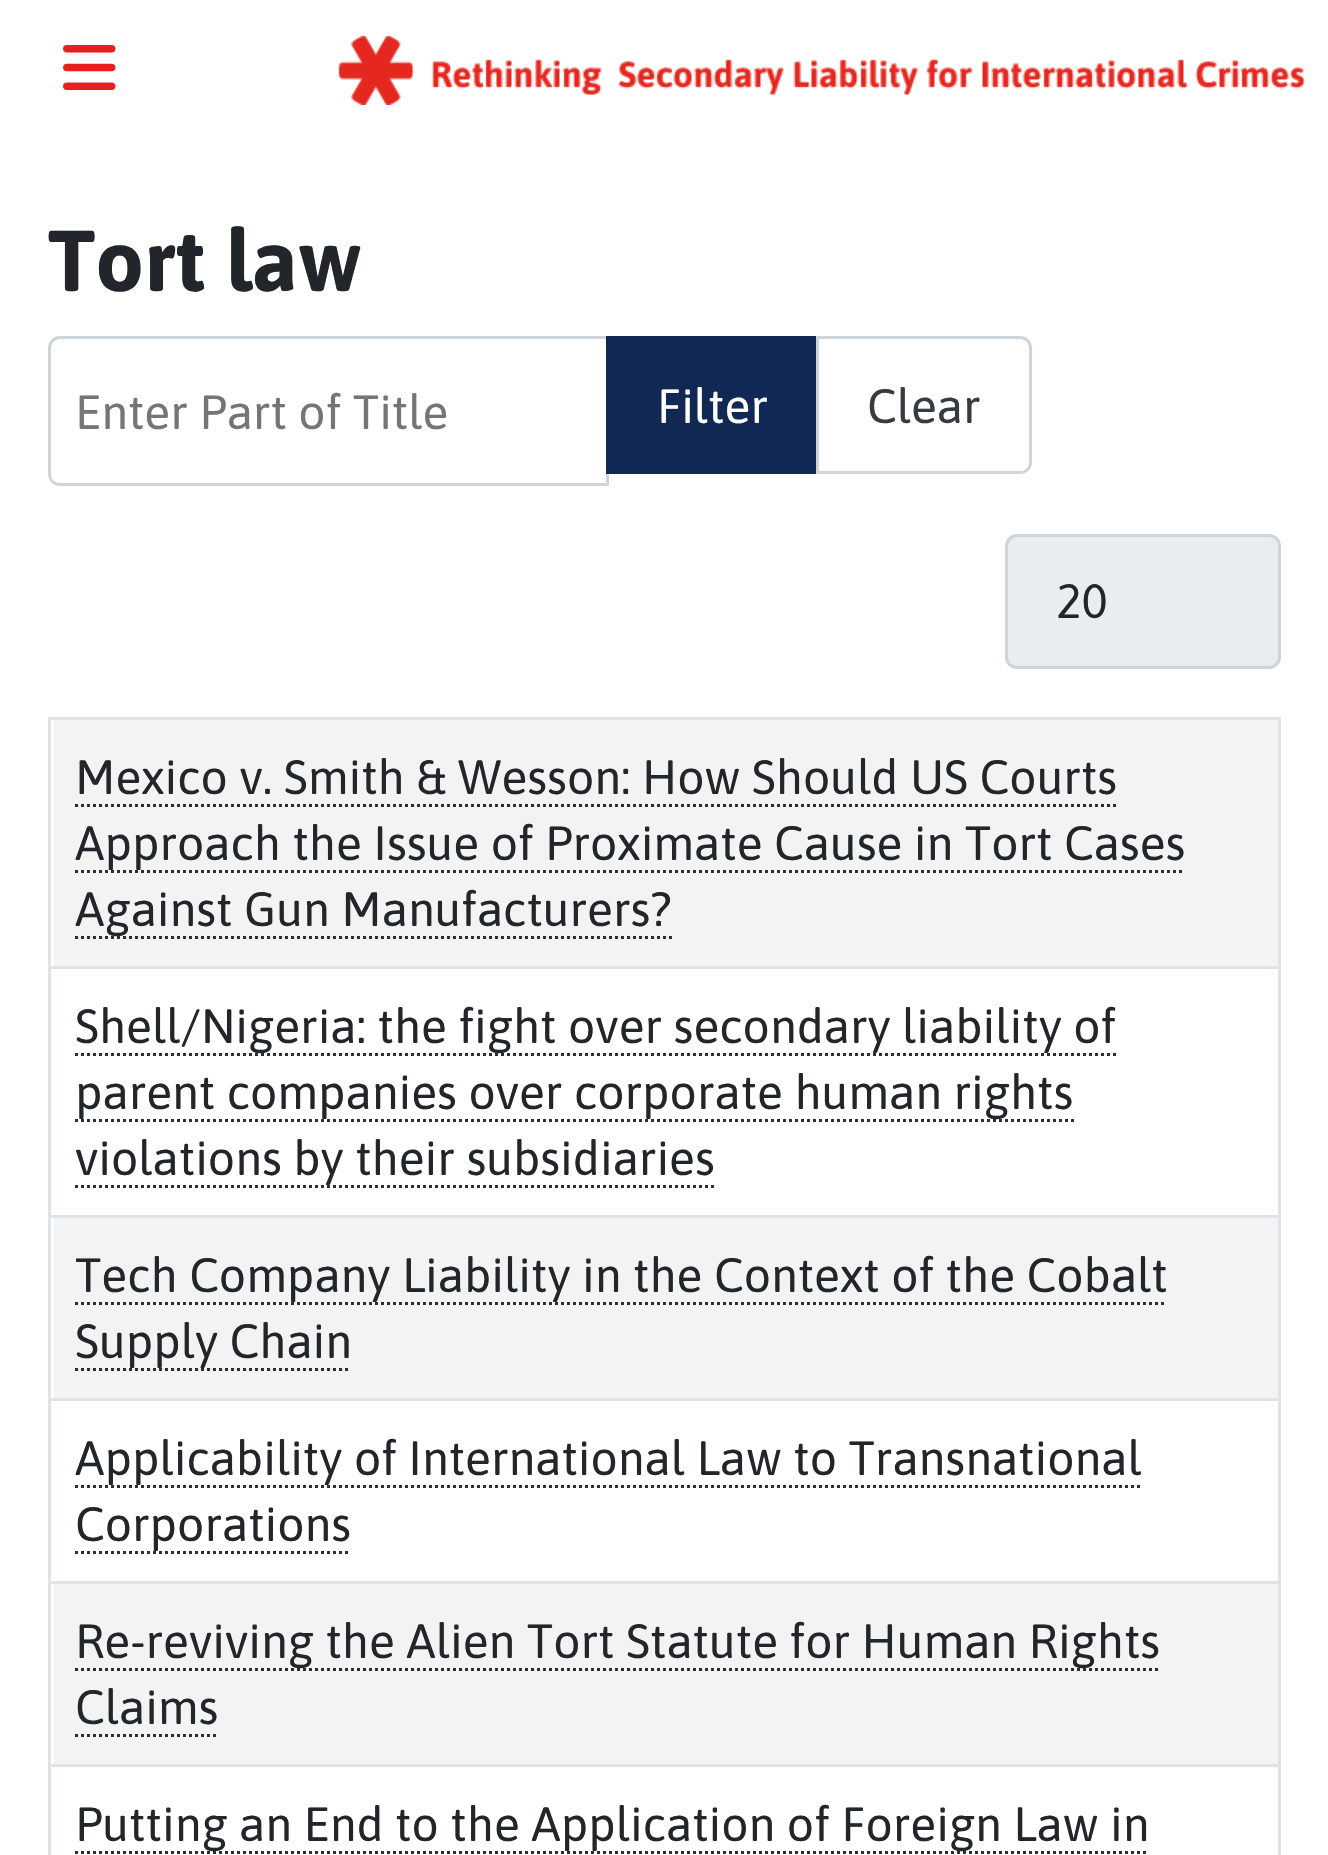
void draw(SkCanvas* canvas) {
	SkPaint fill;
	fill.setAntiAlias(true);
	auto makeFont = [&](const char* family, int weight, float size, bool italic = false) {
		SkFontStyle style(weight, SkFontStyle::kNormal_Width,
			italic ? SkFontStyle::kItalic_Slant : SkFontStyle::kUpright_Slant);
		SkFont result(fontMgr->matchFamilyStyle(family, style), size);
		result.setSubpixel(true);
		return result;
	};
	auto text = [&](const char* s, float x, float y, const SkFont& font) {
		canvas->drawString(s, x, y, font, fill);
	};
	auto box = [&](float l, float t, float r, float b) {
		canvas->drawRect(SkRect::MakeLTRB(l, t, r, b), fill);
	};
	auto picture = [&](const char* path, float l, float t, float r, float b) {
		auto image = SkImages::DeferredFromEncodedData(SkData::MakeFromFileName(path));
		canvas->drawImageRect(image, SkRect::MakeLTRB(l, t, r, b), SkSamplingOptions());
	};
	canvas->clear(0xFFFFFFFF);
	picture("image0.png", 63, 45, 116, 90);
	picture("image1.png", 338, 36, 1305, 105);
	fill.setStyle(SkPaint::kStroke_Style);
	fill.setStrokeWidth(3);
	fill.setColor(0xFFCED4DA);
	canvas->drawPath(SkPathBuilder().moveTo(60, 337.5f).lineTo(607.5f, 337.5f).lineTo(607.5f, 484.5f).lineTo(60, 484.5f).cubicTo(54, 484.5f, 49.5f, 480, 49.5f, 474).lineTo(49.5f, 348).cubicTo(49.5f, 342, 54, 337.5f, 60, 337.5f).close().detach(), fill);
	fill.setStyle(SkPaint::kFill_Style);
	fill.setColor(0xFF112855);
	box(606, 336, 816, 474);
	fill.setStyle(SkPaint::kStroke_Style);
	fill.setColor(0xFFCED4DA);
	canvas->drawPath(SkPathBuilder().moveTo(817.5f, 337.5f).lineTo(1020, 337.5f).cubicTo(1026, 337.5f, 1030.5f, 342, 1030.5f, 348).lineTo(1030.5f, 462).cubicTo(1030.5f, 468, 1026, 472.5f, 1020, 472.5f).lineTo(817.5f, 472.5f).close().detach(), fill);
	fill.setStyle(SkPaint::kFill_Style);
	fill.setColor(0xFFEAEDF0);
	canvas->drawRoundRect(SkRect::MakeLTRB(1006.5f, 535.5f, 1279.5f, 667.5f), 10.5f, 10.5f, fill);
	fill.setStyle(SkPaint::kStroke_Style);
	fill.setColor(0xFFCED4DA);
	canvas->drawRoundRect(SkRect::MakeLTRB(1006.5f, 535.5f, 1279.5f, 667.5f), 10.5f, 10.5f, fill);
	fill.setStyle(SkPaint::kFill_Style);
	fill.setColor(0xFFDFE3E7);
	box(48, 717, 1281, 720);
	fill.setColor(0xFFF3F3F3);
	box(54, 720, 1278, 966);
	fill.setStyle(SkPaint::kStroke_Style);
	fill.setColor(0xFF2E2E2F);
	fill.setPathEffect(SkDashPathEffect::Make({{3, 3}}, 0));
	canvas->drawPath(SkPathBuilder().moveTo(75, 805.5f).lineTo(1116, 805.5f).detach(), fill);
	fill.setPathEffect(nullptr);
	fill.setPathEffect(SkDashPathEffect::Make({{3, 3}}, 0));
	canvas->drawPath(SkPathBuilder().moveTo(75, 871.5f).lineTo(1185, 871.5f).detach(), fill);
	fill.setPathEffect(nullptr);
	fill.setPathEffect(SkDashPathEffect::Make({{3, 3}}, 0));
	canvas->drawPath(SkPathBuilder().moveTo(75, 937.5f).lineTo(672, 937.5f).detach(), fill);
	fill.setPathEffect(nullptr);
	fill.setStyle(SkPaint::kFill_Style);
	fill.setColor(0xFFDFE3E7);
	box(48, 966, 1281, 969);
	fill.setStyle(SkPaint::kStroke_Style);
	fill.setColor(0xFF2E2E2F);
	fill.setPathEffect(SkDashPathEffect::Make({{3, 3}}, 0));
	canvas->drawPath(SkPathBuilder().moveTo(75, 1054.5f).lineTo(1116, 1054.5f).detach(), fill);
	fill.setPathEffect(nullptr);
	fill.setPathEffect(SkDashPathEffect::Make({{3, 3}}, 0));
	canvas->drawPath(SkPathBuilder().moveTo(75, 1120.5f).lineTo(1074, 1120.5f).detach(), fill);
	fill.setPathEffect(nullptr);
	fill.setPathEffect(SkDashPathEffect::Make({{3, 3}}, 0));
	canvas->drawPath(SkPathBuilder().moveTo(75, 1186.5f).lineTo(714, 1186.5f).detach(), fill);
	fill.setPathEffect(nullptr);
	fill.setStyle(SkPaint::kFill_Style);
	fill.setColor(0xFFDFE3E7);
	box(48, 1215, 1281, 1218);
	fill.setColor(0xFFF3F3F3);
	box(54, 1218, 1278, 1398);
	fill.setStyle(SkPaint::kStroke_Style);
	fill.setColor(0xFF2E2E2F);
	fill.setPathEffect(SkDashPathEffect::Make({{3, 3}}, 0));
	canvas->drawPath(SkPathBuilder().moveTo(75, 1303.5f).lineTo(1167, 1303.5f).detach(), fill);
	fill.setPathEffect(nullptr);
	fill.setPathEffect(SkDashPathEffect::Make({{3, 3}}, 0));
	canvas->drawPath(SkPathBuilder().moveTo(75, 1369.5f).lineTo(351, 1369.5f).detach(), fill);
	fill.setPathEffect(nullptr);
	fill.setStyle(SkPaint::kFill_Style);
	fill.setColor(0xFFDFE3E7);
	box(48, 1398, 1281, 1401);
	fill.setStyle(SkPaint::kStroke_Style);
	fill.setColor(0xFF2E2E2F);
	fill.setPathEffect(SkDashPathEffect::Make({{3, 3}}, 0));
	canvas->drawPath(SkPathBuilder().moveTo(75, 1486.5f).lineTo(1143, 1486.5f).detach(), fill);
	fill.setPathEffect(nullptr);
	fill.setPathEffect(SkDashPathEffect::Make({{3, 3}}, 0));
	canvas->drawPath(SkPathBuilder().moveTo(75, 1552.5f).lineTo(351, 1552.5f).detach(), fill);
	fill.setPathEffect(nullptr);
	fill.setStyle(SkPaint::kFill_Style);
	fill.setColor(0xFFDFE3E7);
	box(48, 1581, 1281, 1584);
	fill.setColor(0xFFF3F3F3);
	box(54, 1584, 1278, 1764);
	fill.setStyle(SkPaint::kStroke_Style);
	fill.setColor(0xFF2E2E2F);
	fill.setPathEffect(SkDashPathEffect::Make({{3, 3}}, 0));
	canvas->drawPath(SkPathBuilder().moveTo(75, 1669.5f).lineTo(1161, 1669.5f).detach(), fill);
	fill.setPathEffect(nullptr);
	fill.setPathEffect(SkDashPathEffect::Make({{3, 3}}, 0));
	canvas->drawPath(SkPathBuilder().moveTo(75, 1735.5f).lineTo(219, 1735.5f).detach(), fill);
	fill.setPathEffect(nullptr);
	fill.setStyle(SkPaint::kFill_Style);
	fill.setColor(0xFFDFE3E7);
	box(48, 1764, 1281, 1767);
	box(1278, 717, 1281, 1855);
	box(48, 717, 51, 1855);
	fill.setStyle(SkPaint::kStroke_Style);
	fill.setColor(0xFF2E2E2F);
	fill.setPathEffect(SkDashPathEffect::Make({{3, 3}}, 0));
	canvas->drawPath(SkPathBuilder().moveTo(75, 1852.5f).lineTo(1149, 1852.5f).detach(), fill);
	fill.setPathEffect(nullptr);
	auto font1 = makeFont("Asap", 700, 86);
	fill.setStyle(SkPaint::kFill_Style);
	fill.setColor(0xFF22262A);
	text("Tort law", 48, 291, font1);
	auto font2 = makeFont("Asap", 400, 48);
	fill.setColor(0xFF757575);
	text("Enter Part of Title", 75, 429, font2);
	fill.setColor(0xFFFFFFFF);
	text("Filter", 657, 423, font2);
	fill.setColor(0xFF353B41);
	text("Clear", 867, 423, font2);
	fill.setColor(0xFF22262A);
	text("20", 1056, 618, font2);
	text("Mexico v. Smith & Wesson: How Should US Courts", 75, 794, font2);
	text("Approach the Issue of Proximate Cause in Tort Cases", 75, 860, font2);
	text("Against Gun Manufacturers?", 75, 926, font2);
	text("Shell/Nigeria: the fight over secondary liability of", 75, 1043, font2);
	text("parent companies over corporate human rights", 75, 1109, font2);
	text("violations by their subsidiaries", 75, 1175, font2);
	text("Tech Company Liability in the Context of the Cobalt", 75, 1292, font2);
	text("Supply Chain", 75, 1358, font2);
	text("Applicability of International Law to Transnational", 75, 1475, font2);
	text("Corporations", 75, 1541, font2);
	text("Re-reviving the Alien Tort Statute for Human Rights", 75, 1658, font2);
	text("Claims", 75, 1724, font2);
	text("Putting an End to the Application of Foreign Law in", 75, 1841, font2);
}
